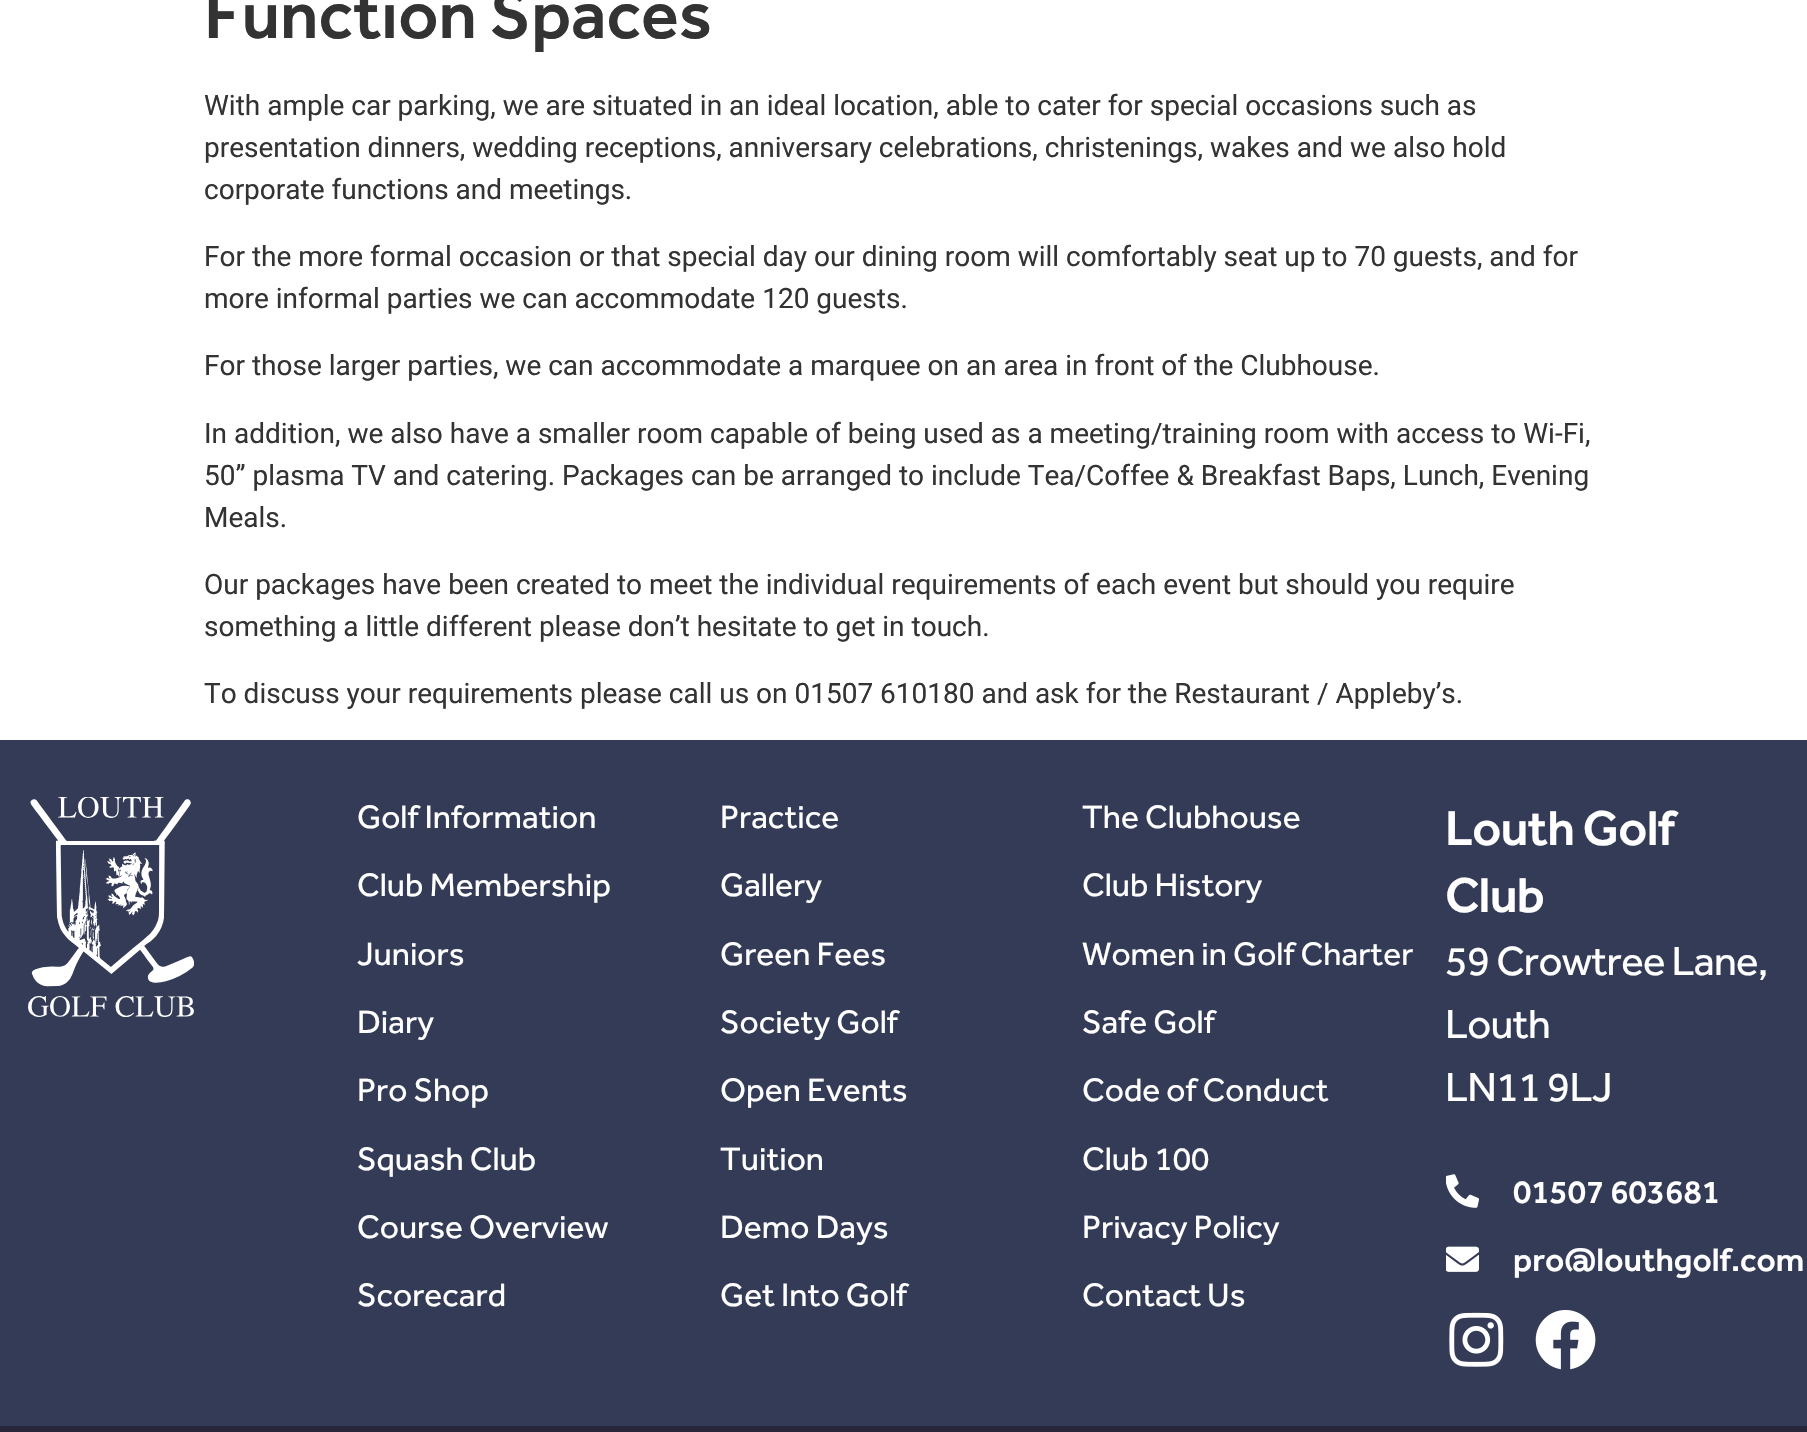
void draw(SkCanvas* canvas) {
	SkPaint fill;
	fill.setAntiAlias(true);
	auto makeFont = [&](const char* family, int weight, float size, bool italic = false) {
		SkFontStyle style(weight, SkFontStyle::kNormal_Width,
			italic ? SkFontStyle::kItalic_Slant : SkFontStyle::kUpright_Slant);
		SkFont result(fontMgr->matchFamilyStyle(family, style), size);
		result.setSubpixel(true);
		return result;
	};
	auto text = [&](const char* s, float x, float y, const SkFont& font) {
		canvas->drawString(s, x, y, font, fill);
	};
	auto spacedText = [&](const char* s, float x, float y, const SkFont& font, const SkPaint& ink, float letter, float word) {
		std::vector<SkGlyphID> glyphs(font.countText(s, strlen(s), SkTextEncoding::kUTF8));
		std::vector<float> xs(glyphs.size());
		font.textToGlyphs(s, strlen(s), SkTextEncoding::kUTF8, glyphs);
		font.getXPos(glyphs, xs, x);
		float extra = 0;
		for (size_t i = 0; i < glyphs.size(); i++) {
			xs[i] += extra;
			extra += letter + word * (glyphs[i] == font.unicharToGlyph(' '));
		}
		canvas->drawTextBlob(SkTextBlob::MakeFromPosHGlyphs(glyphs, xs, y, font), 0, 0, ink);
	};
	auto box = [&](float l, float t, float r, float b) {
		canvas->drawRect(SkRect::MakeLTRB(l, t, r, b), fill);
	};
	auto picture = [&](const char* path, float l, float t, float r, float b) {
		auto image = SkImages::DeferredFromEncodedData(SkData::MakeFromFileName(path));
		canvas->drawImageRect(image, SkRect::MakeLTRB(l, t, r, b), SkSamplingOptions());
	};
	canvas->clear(0xFFFFFFFF);
	fill.setColor(0xFF343B56);
	box(0, 740, 1807, 1426);
	picture("image0.png", 28, 797, 194, 1017);
	picture("image1.png", 1446, 1174, 1479, 1208);
	picture("image2.png", 1446, 1246, 1479, 1272);
	picture("image3.png", 1449, 1312, 1504, 1367);
	picture("image4.png", 1535, 1310, 1596, 1370);
	fill.setColor(0xFF28263A);
	box(0, 1426, 1807, 1432);
	auto font1 = makeFont("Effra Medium", 500, 70);
	fill.setColor(0xFF333333);
	text("Function Spaces", 204, 38, font1);
	auto font2 = makeFont("Roboto", 400, 28);
	text("With ample car parking, we are situated in an ideal location, able to cater for special occasions such as", 204, 115, font2);
	text("presentation dinners, wedding receptions, anniversary celebrations, christenings, wakes and we also hold", 204, 157, font2);
	text("corporate functions and meetings.", 204, 199, font2);
	text("For the more formal occasion or that special day our dining room will comfortably seat up to 70 guests, and for", 204, 266, font2);
	text("more informal parties we can accommodate 120 guests.", 204, 308, font2);
	text("For those larger parties, we can accommodate a marquee on an area in front of the Clubhouse.", 204, 375, font2);
	text("In addition, we also have a smaller room capable of being used as a meeting/training room with access to Wi-Fi,", 204, 443, font2);
	text("50” plasma TV and catering. Packages can be arranged to include Tea/Coffee & Breakfast Baps, Lunch, Evening", 204, 485, font2);
	text("Meals.", 204, 527, font2);
	text("Our packages have been created to meet the individual requirements of each event but should you require", 204, 594, font2);
	text("something a little different please don’t hesitate to get in touch.", 204, 636, font2);
	text("To discuss your requirements please call us on 01507 610180 and ask for the Restaurant / Appleby’s.", 204, 703, font2);
	auto font3 = makeFont("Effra", 400, 33.5f);
	fill.setColor(0xFFFFFFFF);
	text("Golf Information", 357, 828, font3);
	text("Club Membership", 357, 896, font3);
	text("Juniors", 357, 965, font3);
	text("Diary", 357, 1033, font3);
	text("Pro Shop", 357, 1101, font3);
	text("Squash Club", 357, 1170, font3);
	text("Course Overview", 357, 1238, font3);
	text("Scorecard", 357, 1306, font3);
	text("Practice", 720, 828, font3);
	text("Gallery", 720, 896, font3);
	text("Green Fees", 720, 965, font3);
	text("Society Golf", 720, 1033, font3);
	text("Open Events", 720, 1101, font3);
	text("Tuition", 720, 1170, font3);
	text("Demo Days", 720, 1238, font3);
	text("Get Into Golf", 720, 1306, font3);
	text("The Clubhouse", 1082, 828, font3);
	text("Club History", 1082, 896, font3);
	text("Women in Golf Charter", 1082, 965, font3);
	text("Safe Golf", 1082, 1033, font3);
	text("Code of Conduct", 1082, 1101, font3);
	text("Club 100", 1082, 1170, font3);
	text("Privacy Policy", 1082, 1238, font3);
	text("Contact Us", 1082, 1306, font3);
	auto font4 = makeFont("Effra Medium", 500, 50.5f);
	spacedText("Louth Golf", 1445, 845, font4, fill, -0.75f, 0);
	spacedText("Club", 1445, 912, font4, fill, -0.75f, 0);
	auto font5 = makeFont("Effra", 400, 42);
	spacedText("59 Crowtree Lane,", 1445, 975, font5, fill, -0.75f, 0);
	spacedText("Louth", 1445, 1038, font5, fill, -0.75f, 0);
	spacedText("LN11 9LJ", 1445, 1101, font5, fill, -0.75f, 0);
	auto font6 = makeFont("Effra Medium", 500, 33.5f);
	text("01507 603681", 1513, 1203, font6);
	text("pro@louthgolf.com", 1513, 1271, font6);
}
